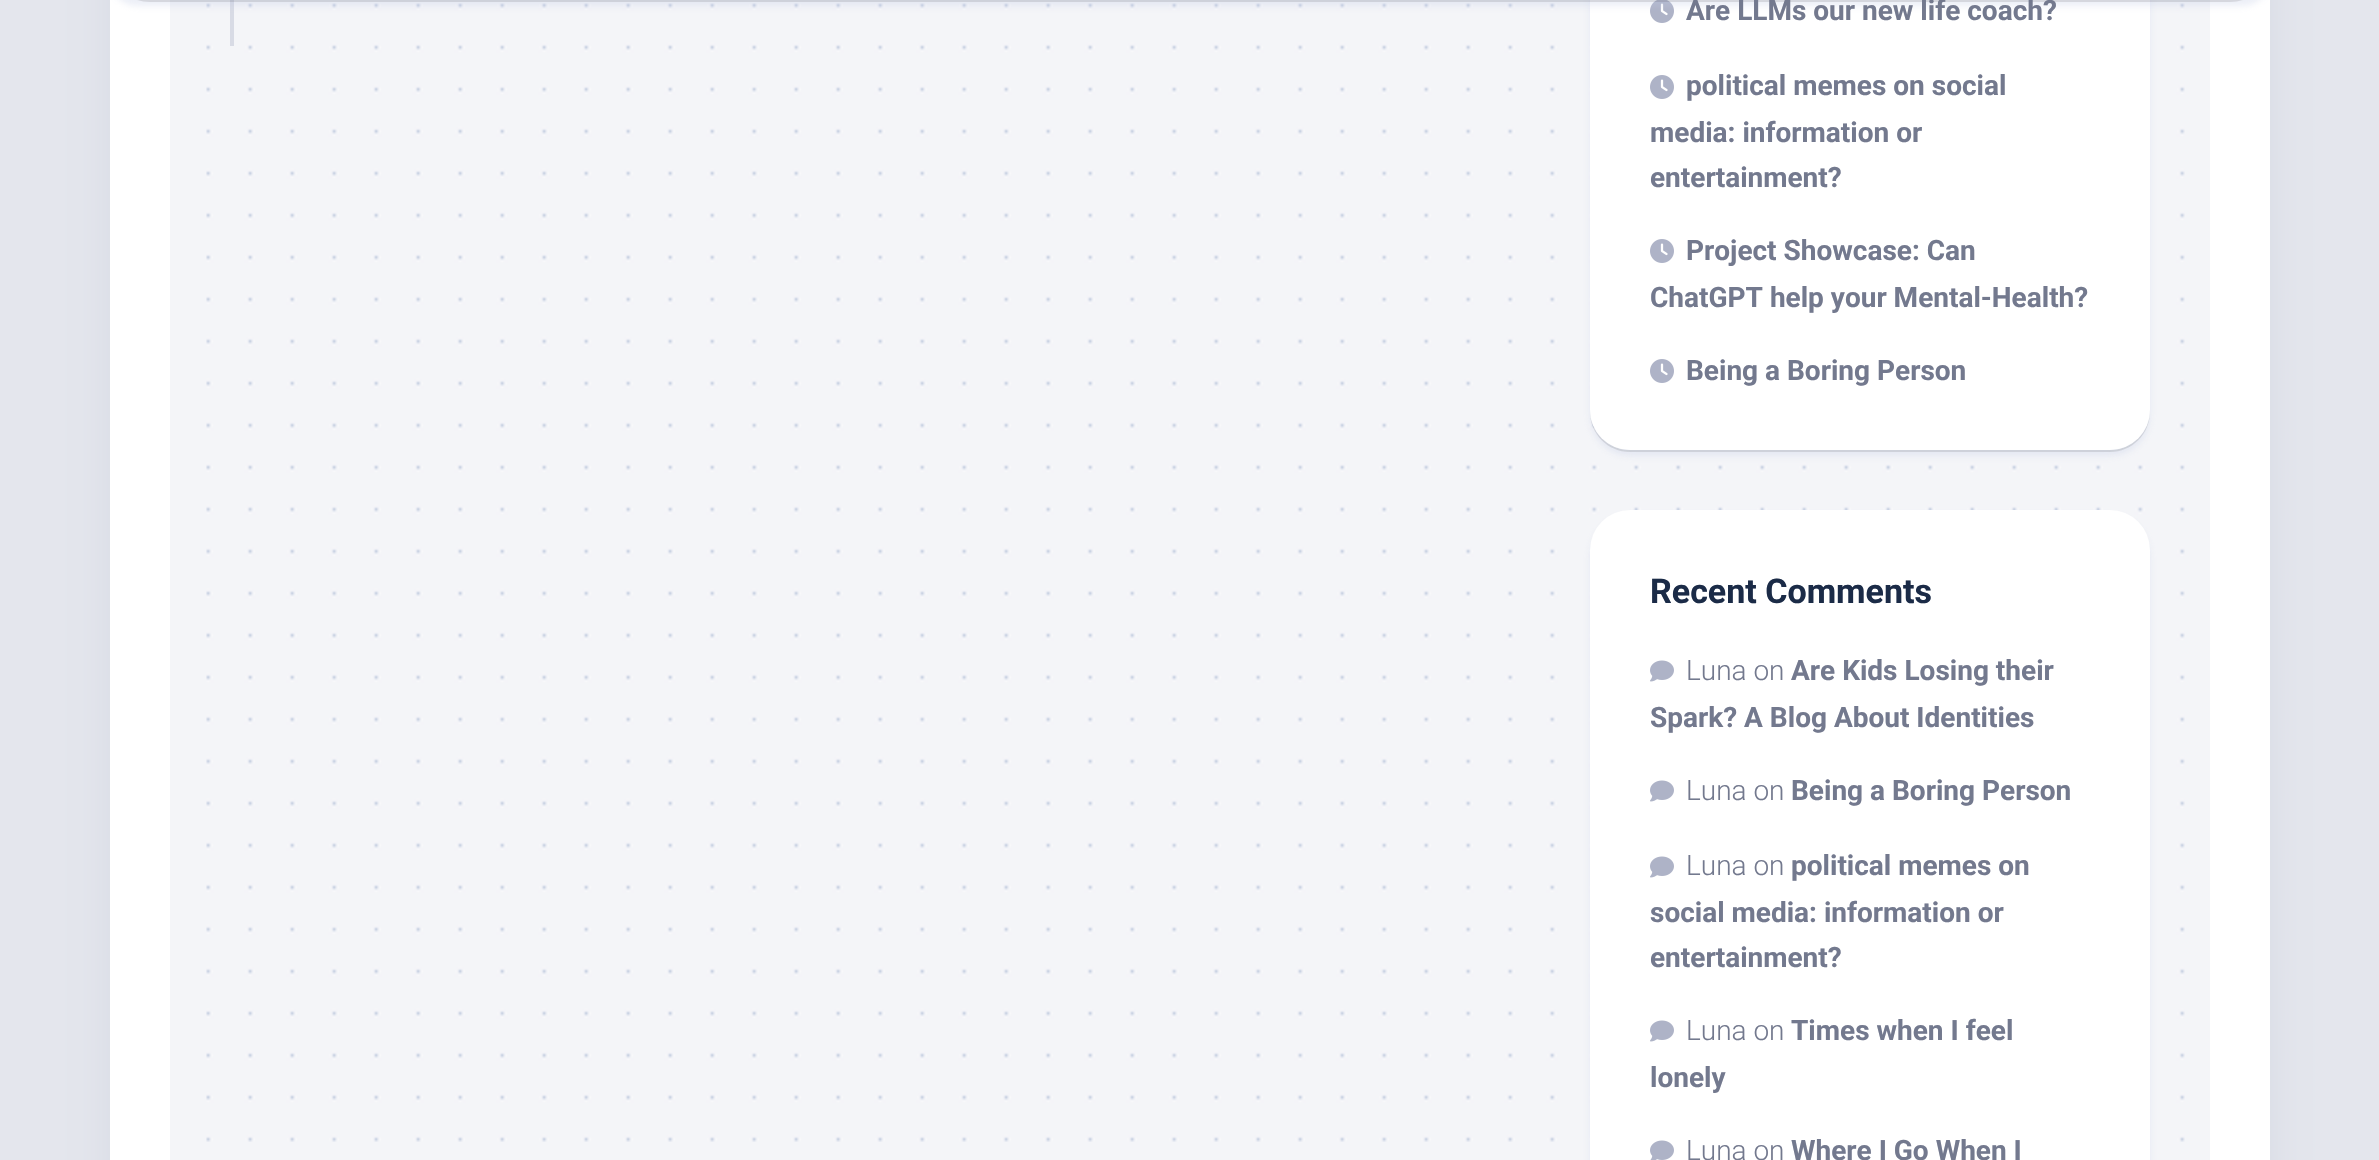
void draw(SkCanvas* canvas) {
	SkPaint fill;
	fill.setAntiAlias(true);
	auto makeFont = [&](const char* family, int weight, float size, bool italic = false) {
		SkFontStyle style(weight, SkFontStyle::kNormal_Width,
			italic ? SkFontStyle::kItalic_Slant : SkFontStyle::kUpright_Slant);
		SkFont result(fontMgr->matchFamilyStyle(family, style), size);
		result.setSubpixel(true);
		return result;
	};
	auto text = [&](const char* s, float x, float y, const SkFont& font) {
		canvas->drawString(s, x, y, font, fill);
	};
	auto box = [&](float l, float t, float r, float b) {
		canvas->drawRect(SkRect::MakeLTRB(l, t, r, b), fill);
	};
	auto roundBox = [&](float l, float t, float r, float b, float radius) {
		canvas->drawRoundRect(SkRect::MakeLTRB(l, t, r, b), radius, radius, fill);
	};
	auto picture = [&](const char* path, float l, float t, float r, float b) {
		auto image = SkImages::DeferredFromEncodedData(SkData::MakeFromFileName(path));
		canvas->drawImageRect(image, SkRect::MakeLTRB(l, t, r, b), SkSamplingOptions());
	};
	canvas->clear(0xFFE4E6ED);
	fill.setColor(0xFFD6DAE4);
	fill.setMaskFilter(SkMaskFilter::MakeBlur(kNormal_SkBlurStyle, 20));
	canvas->drawRoundRect(SkRect::MakeLTRB(110, -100, 2270, 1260), 40, 40, fill);
	fill.setMaskFilter(nullptr);
	fill.setColor(0xFFFFFFFF);
	box(110, 0, 2270, 1160);
	fill.setColor(0xFFF4F5F8);
	box(170, 0, 2210, 1160);
	picture("image0.png", 206, 3, 2185, 1142);
	fill.setColor(0xFFD8DBE5);
	box(230, 0, 234, 46);
	fill.setColor(0x4DC1CBE6);
	fill.setMaskFilter(SkMaskFilter::MakeBlur(kNormal_SkBlurStyle, 3));
	canvas->drawRoundRect(SkRect::MakeLTRB(1590, -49, 2150, 456), 40, 40, fill);
	fill.setMaskFilter(nullptr);
	fill.setColor(0x1A000000);
	canvas->drawPath(SkPathBuilder().moveTo(1590, 410).lineTo(1590, 412).cubicTo(1590, 434, 1608, 452, 1630, 452).lineTo(2110, 452).cubicTo(2132, 452, 2150, 434, 2150, 412).lineTo(2150, 410).cubicTo(2150, 432, 2132, 450, 2110, 450).lineTo(1630, 450).cubicTo(1608, 450, 1590, 432, 1590, 410).close().detach(), fill);
	fill.setColor(0xFFFFFFFF);
	roundBox(1590, -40, 2150, 450, 40);
	picture("image1.png", 1650, 0, 1674, 23);
	fill.setColor(0x4DC1CBE6);
	fill.setMaskFilter(SkMaskFilter::MakeBlur(kNormal_SkBlurStyle, 3));
	canvas->drawRoundRect(SkRect::MakeLTRB(110, -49, 2270, 6), 40, 40, fill);
	fill.setMaskFilter(nullptr);
	fill.setColor(0x1A000000);
	canvas->drawPath(SkPathBuilder().moveTo(110, -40).cubicTo(110, -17, 126, 2, 150, 2).lineTo(2230, 2).cubicTo(2254, 2, 2270, -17, 2270, -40).cubicTo(2270, -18, 2252, 0, 2230, 0).lineTo(150, 0).cubicTo(128, 0, 110, -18, 110, -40).close().detach(), fill);
	picture("image2.png", 1650, 75, 1674, 99);
	picture("image2.png", 1650, 239, 1674, 263);
	picture("image2.png", 1650, 359, 1674, 383);
	fill.setColor(0x4DC1CBE6);
	fill.setMaskFilter(SkMaskFilter::MakeBlur(kNormal_SkBlurStyle, 3));
	canvas->drawRoundRect(SkRect::MakeLTRB(1590, 516, 2150, 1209), 40, 40, fill);
	fill.setMaskFilter(nullptr);
	fill.setColor(0xFFFFFFFF);
	roundBox(1590, 510, 2150, 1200, 40);
	picture("image3.png", 1650, 660, 1674, 682);
	picture("image3.png", 1650, 780, 1674, 802);
	picture("image3.png", 1650, 856, 1674, 878);
	picture("image3.png", 1650, 1020, 1674, 1042);
	picture("image4.png", 1650, 1140, 1674, 1160);
	auto font1 = makeFont("Roboto", 700, 28);
	fill.setColor(0xFF73798E);
	text("Are LLMs our new life coach?", 1686, 20, font1);
	text("political memes on social", 1686, 95, font1);
	text("media: information or", 1650, 142, font1);
	text("entertainment?", 1650, 187, font1);
	text("Project Showcase: Can", 1686, 260, font1);
	text("ChatGPT help your Mental-Health?", 1650, 307, font1);
	text("Being a Boring Person", 1686, 380, font1);
	auto font2 = makeFont("Roboto", 700, 34);
	fill.setColor(0xFF1B2B47);
	text("Recent Comments", 1650, 603, font2);
	auto font3 = makeFont("Roboto", 300, 28);
	fill.setColor(0xFF73798E);
	text("Luna on", 1686, 680, font3);
	text("Are Kids Losing their", 1791, 680, font1);
	text("Spark? A Blog About Identities", 1650, 727, font1);
	text("Luna on", 1686, 800, font3);
	text("Being a Boring Person", 1791, 800, font1);
	text("Luna on", 1686, 875, font3);
	text("political memes on", 1791, 875, font1);
	text("social media: information or", 1650, 922, font1);
	text("entertainment?", 1650, 967, font1);
	text("Luna on", 1686, 1040, font3);
	text("Times when I feel", 1791, 1040, font1);
	text("lonely", 1650, 1087, font1);
	text("Luna on", 1686, 1160, font3);
	text("Where I Go When I", 1791, 1160, font1);
}
